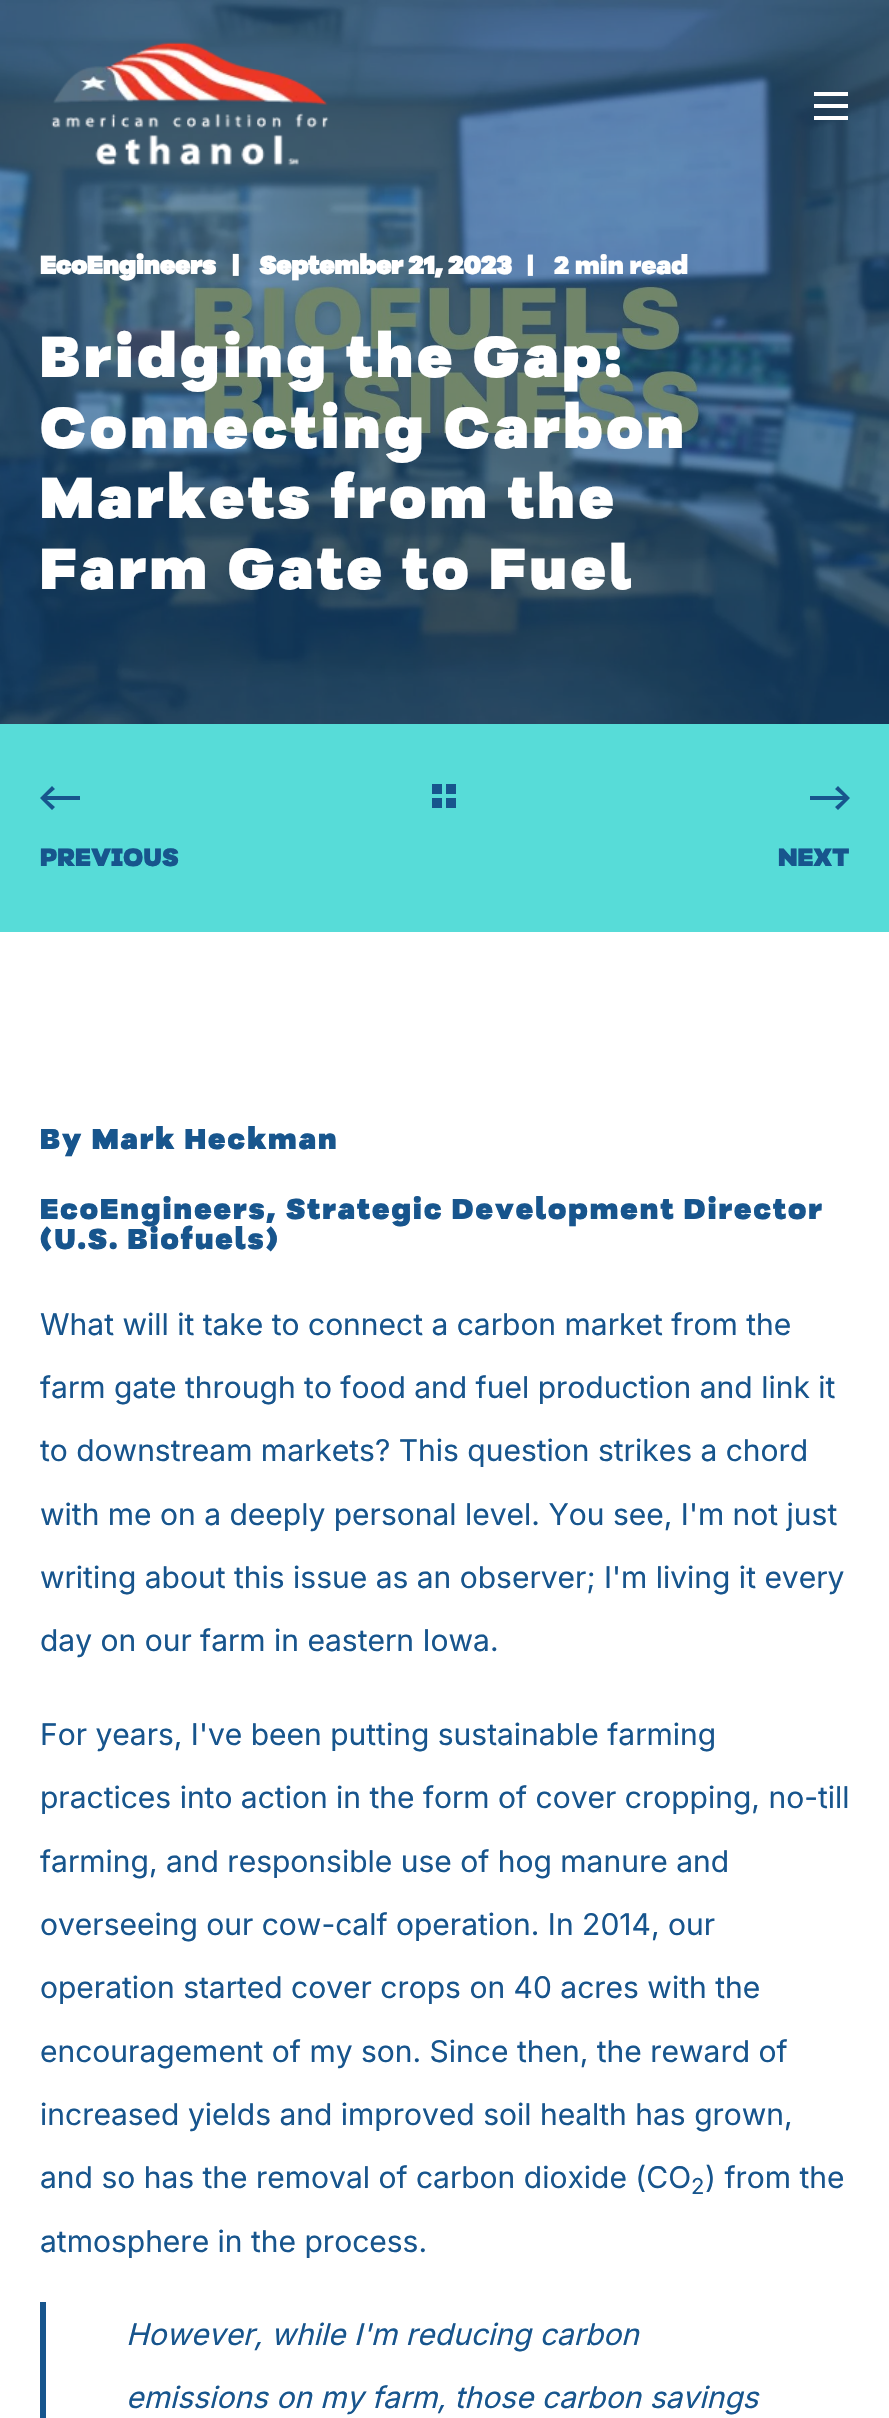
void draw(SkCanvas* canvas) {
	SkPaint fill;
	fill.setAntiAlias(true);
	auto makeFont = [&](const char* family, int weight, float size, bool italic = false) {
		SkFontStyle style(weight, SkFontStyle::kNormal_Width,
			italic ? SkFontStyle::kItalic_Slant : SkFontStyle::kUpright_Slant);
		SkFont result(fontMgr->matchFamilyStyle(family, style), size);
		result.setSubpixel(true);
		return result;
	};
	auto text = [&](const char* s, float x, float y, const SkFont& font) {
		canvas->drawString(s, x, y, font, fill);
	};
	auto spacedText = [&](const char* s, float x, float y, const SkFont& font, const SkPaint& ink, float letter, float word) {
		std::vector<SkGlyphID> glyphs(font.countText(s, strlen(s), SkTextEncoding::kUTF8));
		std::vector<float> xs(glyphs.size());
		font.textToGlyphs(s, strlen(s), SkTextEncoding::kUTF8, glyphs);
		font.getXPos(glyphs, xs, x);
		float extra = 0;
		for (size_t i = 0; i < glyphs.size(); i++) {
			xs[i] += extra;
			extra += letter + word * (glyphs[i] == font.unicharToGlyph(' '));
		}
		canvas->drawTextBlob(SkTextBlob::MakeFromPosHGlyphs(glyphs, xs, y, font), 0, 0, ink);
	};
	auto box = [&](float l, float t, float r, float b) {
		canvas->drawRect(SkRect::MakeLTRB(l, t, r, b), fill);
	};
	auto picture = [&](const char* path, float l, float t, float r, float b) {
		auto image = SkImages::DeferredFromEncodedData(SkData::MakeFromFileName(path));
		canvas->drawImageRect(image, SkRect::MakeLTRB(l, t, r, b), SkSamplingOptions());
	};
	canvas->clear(0xFFFFFFFF);
	picture("image1.png", 0, 0, 889, 724);
	picture("image0.png", 51, 42, 329, 166);
	fill.setColor(0xFFFFFFFF);
	box(814, 92, 848, 96);
	box(814, 104, 848, 108);
	box(814, 116, 848, 120);
	fill.setColor(0xFF57DCD8);
	box(0, 724, 889, 932);
	fill.setColor(0xFF17558D);
	box(432, 784, 442, 794);
	box(432, 798, 442, 808);
	box(446, 784, 456, 794);
	box(446, 798, 456, 808);
	canvas->drawPath(SkPathBuilder().moveTo(40, 798).lineTo(52, 786).lineTo(55, 789).lineTo(47, 796).lineTo(80, 796).lineTo(80, 800).lineTo(47, 800).lineTo(55, 807).lineTo(52, 810).close().detach(), fill);
	canvas->drawPath(SkPathBuilder().moveTo(850, 798).lineTo(838, 786).lineTo(835, 789).lineTo(843, 796).lineTo(810, 796).lineTo(810, 800).lineTo(843, 800).lineTo(835, 807).lineTo(838, 810).close().detach(), fill);
	box(40, 2302, 46, 2418);
	auto font1 = makeFont("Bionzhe", 700, 26);
	fill.setColor(0xFFFFFFFF);
	text("EcoEngineers", 40, 274, font1);
	text("|", 232, 274, font1);
	text("September 21, 2023", 259, 274, font1);
	auto font2 = makeFont("Bionzhe", 400, 26);
	text("|", 527, 274, font2);
	text("2 min read", 554, 274, font2);
	auto font3 = makeFont("Bionzhe", 400, 60);
	spacedText("Bridging the Gap:", 40, 377, font3, fill, 4, 0);
	spacedText("Connecting Carbon", 40, 448, font3, fill, 4, 0);
	spacedText("Markets from the", 40, 518, font3, fill, 4, 0);
	spacedText("Farm Gate to Fuel", 40, 589, font3, fill, 4, 0);
	fill.setColor(0xFF17558D);
	text("PREVIOUS", 40, 866, font2);
	text("NEXT", 778, 866, font2);
	auto font4 = makeFont("Bionzhe", 400, 30);
	spacedText("By Mark Heckman", 40, 1149, font4, fill, 2, 0);
	spacedText("EcoEngineers, Strategic Development Director", 40, 1219, font4, fill, 2, 0);
	spacedText("(U.S. Biofuels)", 40, 1249, font4, fill, 2, 0);
	auto font5 = makeFont("Inter", 400, 30);
	text("What will it take to connect a carbon market from the", 40, 1335, font5);
	text("farm gate through to food and fuel production and link it", 40, 1398, font5);
	text("to downstream markets? This question strikes a chord", 40, 1461, font5);
	text("with me on a deeply personal level. You see, I'm not just", 40, 1525, font5);
	text("writing about this issue as an observer; I'm living it every", 40, 1588, font5);
	text("day on our farm in eastern Iowa.", 40, 1651, font5);
	text("For years, I've been putting sustainable farming", 40, 1745, font5);
	text("practices into action in the form of cover cropping, no-till", 40, 1808, font5);
	text("farming, and responsible use of hog manure and", 40, 1872, font5);
	text("overseeing our cow-calf operation. In 2014, our", 40, 1935, font5);
	text("operation started cover crops on 40 acres with the", 40, 1998, font5);
	text("encouragement of my son. Since then, the reward of", 40, 2062, font5);
	text("increased yields and improved soil health has grown,", 40, 2125, font5);
	text("and so has the removal of carbon dioxide (CO", 40, 2188, font5);
	auto font6 = makeFont("Inter", 400, 22);
	text("2", 691, 2194, font6);
	text(") from the", 705, 2188, font5);
	text("atmosphere in the process.", 40, 2252, font5);
	auto font7 = makeFont("Inter", 400, 30, true);
	text("However, while I'm reducing carbon", 126, 2345, font7);
	text("emissions on my farm, those carbon savings", 126, 2408, font7);
}
